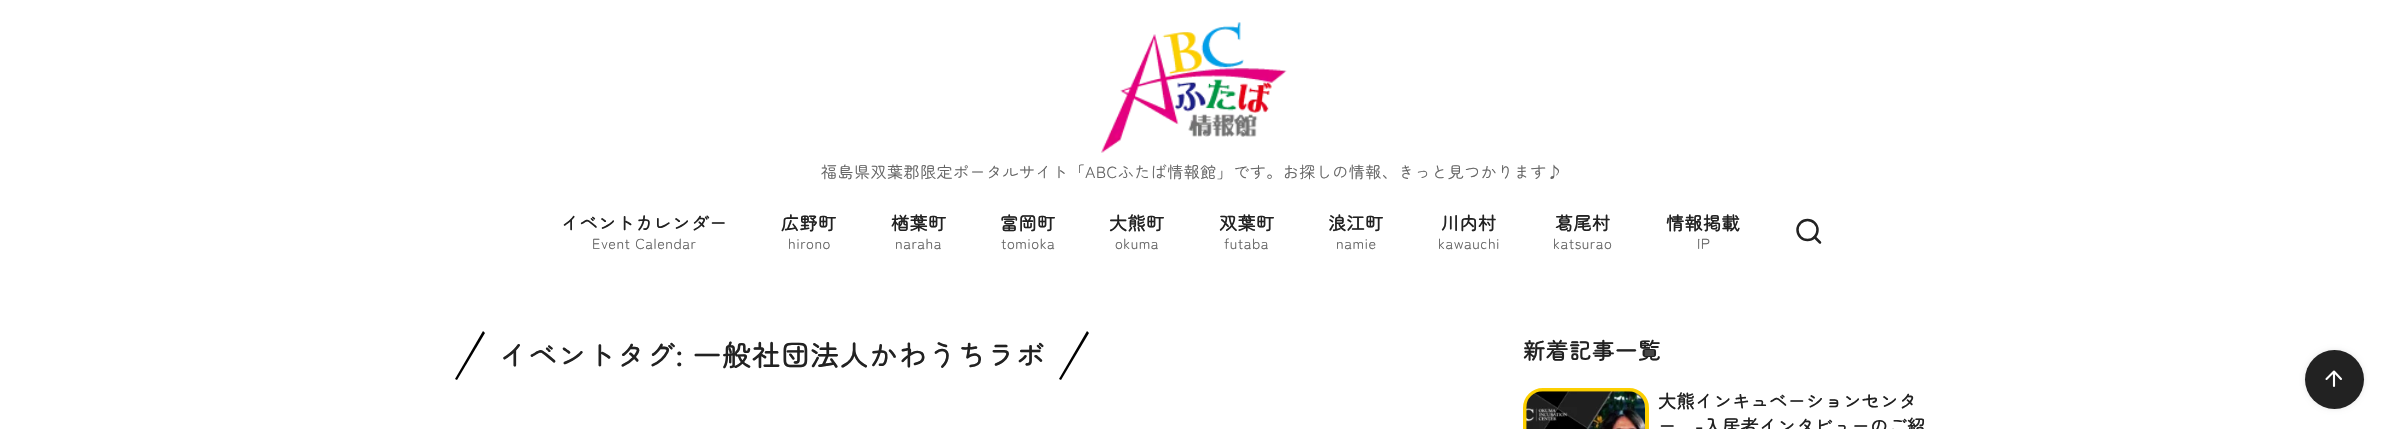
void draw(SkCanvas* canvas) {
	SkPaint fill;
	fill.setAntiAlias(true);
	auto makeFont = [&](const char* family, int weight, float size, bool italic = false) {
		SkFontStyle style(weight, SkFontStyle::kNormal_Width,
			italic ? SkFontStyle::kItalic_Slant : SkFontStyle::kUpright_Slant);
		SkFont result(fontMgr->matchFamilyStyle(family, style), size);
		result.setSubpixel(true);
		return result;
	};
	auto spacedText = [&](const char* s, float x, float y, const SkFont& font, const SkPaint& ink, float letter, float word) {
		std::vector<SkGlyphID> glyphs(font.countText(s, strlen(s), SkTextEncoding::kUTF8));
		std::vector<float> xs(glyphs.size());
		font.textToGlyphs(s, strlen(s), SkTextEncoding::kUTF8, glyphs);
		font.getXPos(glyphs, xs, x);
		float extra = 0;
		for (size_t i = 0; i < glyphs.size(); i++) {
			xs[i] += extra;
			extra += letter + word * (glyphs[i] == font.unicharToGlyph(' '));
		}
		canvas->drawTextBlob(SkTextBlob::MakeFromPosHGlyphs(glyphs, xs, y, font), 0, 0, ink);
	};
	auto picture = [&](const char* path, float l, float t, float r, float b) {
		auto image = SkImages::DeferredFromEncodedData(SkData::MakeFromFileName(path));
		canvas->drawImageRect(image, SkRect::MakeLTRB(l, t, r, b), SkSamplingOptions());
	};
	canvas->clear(0xFFFFFFFF);
	picture("image0.png", 1101, 22, 1287, 153);
	fill.setStyle(SkPaint::kStroke_Style);
	fill.setStrokeWidth(2.5f);
	fill.setColor(0xFF222222);
	canvas->drawCircle(1807.5f, 230, 10, fill);
	fill.setStrokeCap(SkPaint::kRound_Cap);
	fill.setStrokeJoin(SkPaint::kRound_Join);
	canvas->drawPath(SkPathBuilder().moveTo(1820, 242.5f).lineTo(1814.5f, 237).detach(), fill);
	fill.setStyle(SkPaint::kFill_Style);
	fill.setColor(0xFF000000);
	canvas->drawPath(SkPathBuilder().moveTo(455, 379).lineTo(483, 331).lineTo(485, 333).lineTo(457, 380).close().detach(), fill);
	canvas->drawPath(SkPathBuilder().moveTo(1059, 379).lineTo(1087, 331).lineTo(1089, 333).lineTo(1061, 380).close().detach(), fill);
	fill.setStyle(SkPaint::kStroke_Style);
	fill.setStrokeWidth(4);
	fill.setStrokeCap(SkPaint::kButt_Cap);
	fill.setStrokeJoin(SkPaint::kMiter_Join);
	fill.setColor(0xFFFCCF00);
	canvas->drawRoundRect(SkRect::MakeLTRB(1525, 390, 1647, 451), 18, 18, fill);
	picture("image1.png", 1526, 391, 1645, 429);
	fill.setStyle(SkPaint::kFill_Style);
	fill.setColor(0x1A000000);
	fill.setMaskFilter(SkMaskFilter::MakeBlur(kNormal_SkBlurStyle, 2.5f));
	canvas->drawRoundRect(SkRect::MakeLTRB(2305, 350, 2364, 409), 29.5f, 29.5f, fill);
	fill.setMaskFilter(nullptr);
	fill.setColor(0xFF222222);
	canvas->drawCircle(2334.5f, 379.5f, 29.5f, fill);
	fill.setStyle(SkPaint::kStroke_Style);
	fill.setStrokeWidth(2.1f);
	fill.setStrokeCap(SkPaint::kRound_Cap);
	fill.setStrokeJoin(SkPaint::kRound_Join);
	fill.setColor(0xFFFFFFFF);
	canvas->drawPath(SkPathBuilder().moveTo(2334, 386).lineTo(2334, 371.5f).moveTo(2326.5f, 379).lineTo(2334, 371.5f).lineTo(2341, 379).detach(), fill);
	auto font1 = makeFont("Zen Maru Gothic", 400, 16);
	fill.setStyle(SkPaint::kFill_Style);
	fill.setColor(0xFF656565);
	spacedText("福島県双葉郡限定ポータルサイト「ABCふたば情報館」です。お探しの情報、きっと見つかります♪", 821, 178, font1, fill, 0.5f, 0);
	auto font2 = makeFont("Zen Maru Gothic", 700, 18);
	fill.setColor(0xFF222222);
	spacedText("イベントカレンダー", 561, 230, font2, fill, 0.5f, 0);
	auto font3 = makeFont("Zen Maru Gothic", 400, 14.5f);
	fill.setColor(0xFF656565);
	spacedText("Event Calendar", 592, 249, font3, fill, 0.5f, 0);
	fill.setColor(0xFF222222);
	spacedText("広野町", 781, 230, font2, fill, 0.5f, 0);
	fill.setColor(0xFF656565);
	spacedText("hirono", 788, 249, font3, fill, 0.5f, 0);
	fill.setColor(0xFF222222);
	spacedText("楢葉町", 891, 230, font2, fill, 0.5f, 0);
	fill.setColor(0xFF656565);
	spacedText("naraha", 895, 249, font3, fill, 0.5f, 0);
	fill.setColor(0xFF222222);
	spacedText("富岡町", 1000, 230, font2, fill, 0.5f, 0);
	fill.setColor(0xFF656565);
	spacedText("tomioka", 1001, 249, font3, fill, 0.5f, 0);
	fill.setColor(0xFF222222);
	spacedText("大熊町", 1109, 230, font2, fill, 0.5f, 0);
	fill.setColor(0xFF656565);
	spacedText("okuma", 1115, 249, font3, fill, 0.5f, 0);
	fill.setColor(0xFF222222);
	spacedText("双葉町", 1219, 230, font2, fill, 0.5f, 0);
	fill.setColor(0xFF656565);
	spacedText("futaba", 1224, 249, font3, fill, 0.5f, 0);
	fill.setColor(0xFF222222);
	spacedText("浪江町", 1328, 230, font2, fill, 0.5f, 0);
	fill.setColor(0xFF656565);
	spacedText("namie", 1336, 249, font3, fill, 0.5f, 0);
	fill.setColor(0xFF222222);
	spacedText("川内村", 1441, 230, font2, fill, 0.5f, 0);
	fill.setColor(0xFF656565);
	spacedText("kawauchi", 1438, 249, font3, fill, 0.5f, 0);
	fill.setColor(0xFF222222);
	spacedText("葛尾村", 1555, 230, font2, fill, 0.5f, 0);
	fill.setColor(0xFF656565);
	spacedText("katsurao", 1553, 249, font3, fill, 0.5f, 0);
	fill.setColor(0xFF222222);
	spacedText("情報掲載", 1666, 230, font2, fill, 0.5f, 0);
	fill.setColor(0xFF656565);
	spacedText("IP", 1697, 249, font3, fill, 0.5f, 0);
	auto font4 = makeFont("Zen Maru Gothic", 700, 28);
	fill.setColor(0xFF222222);
	spacedText("イベントタグ: 一般社団法人かわうちラボ", 499, 366, font4, fill, 1.4f, 0);
	auto font5 = makeFont("Zen Maru Gothic", 700, 22);
	spacedText("新着記事一覧", 1523, 359, font5, fill, 1, 0);
	spacedText("大熊インキュベーションセンタ", 1658, 408, font2, fill, 0.5f, 0);
	spacedText("ー　-入居者インタビューのご紹", 1658, 433, font2, fill, 0.5f, 0);
}
